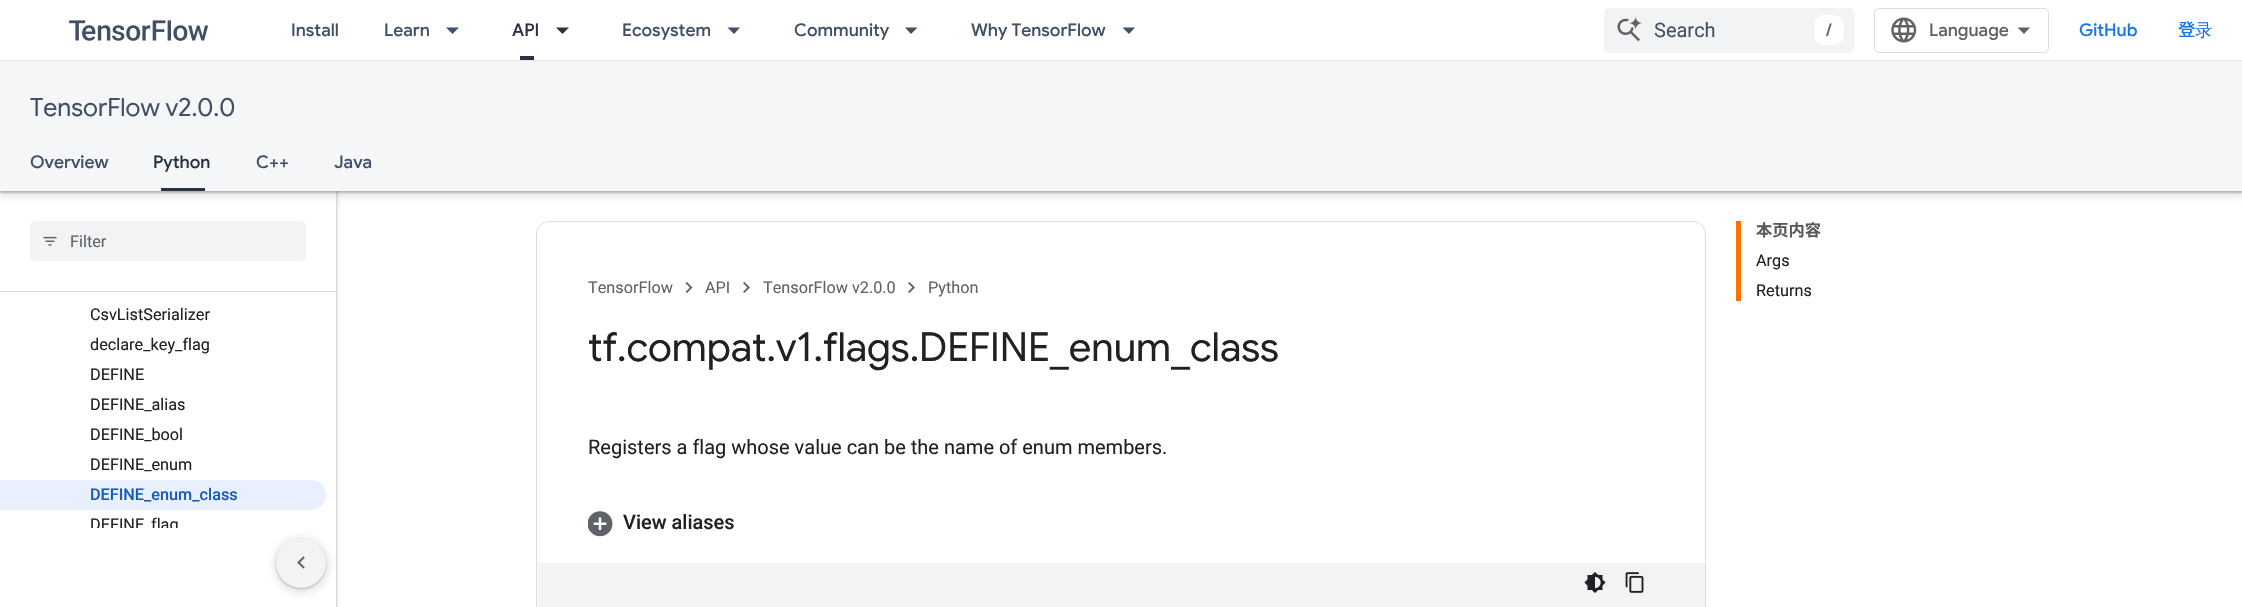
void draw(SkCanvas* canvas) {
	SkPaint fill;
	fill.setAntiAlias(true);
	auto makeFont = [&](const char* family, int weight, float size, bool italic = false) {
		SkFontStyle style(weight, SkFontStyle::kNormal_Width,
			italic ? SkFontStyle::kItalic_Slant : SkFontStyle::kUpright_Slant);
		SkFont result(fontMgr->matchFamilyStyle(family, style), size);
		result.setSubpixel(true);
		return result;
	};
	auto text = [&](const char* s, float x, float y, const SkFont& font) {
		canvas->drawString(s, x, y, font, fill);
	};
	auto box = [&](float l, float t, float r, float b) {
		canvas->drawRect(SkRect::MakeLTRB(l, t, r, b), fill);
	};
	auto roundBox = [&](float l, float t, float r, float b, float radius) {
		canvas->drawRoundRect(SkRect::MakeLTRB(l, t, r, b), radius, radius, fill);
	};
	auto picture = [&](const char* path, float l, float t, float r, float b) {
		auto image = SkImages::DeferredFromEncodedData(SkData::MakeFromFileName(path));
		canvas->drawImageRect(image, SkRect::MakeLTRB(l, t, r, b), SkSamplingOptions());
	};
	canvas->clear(0xFFFFFFFF);
	canvas->save();
	canvas->clipRect(SkRect::MakeLTRB(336, 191, 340, 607));
	fill.setColor(0x263C4043);
	fill.setMaskFilter(SkMaskFilter::MakeBlur(kNormal_SkBlurStyle, 2));
	canvas->drawRect(SkRect::MakeLTRB(-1, 0, 338, 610), fill);
	fill.setMaskFilter(nullptr);
	canvas->restore();
	canvas->save();
	canvas->clipRect(SkRect::MakeLTRB(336, 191, 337, 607));
	fill.setColor(0x4D3C4043);
	fill.setMaskFilter(SkMaskFilter::MakeBlur(kNormal_SkBlurStyle, 1));
	canvas->drawRect(SkRect::MakeLTRB(0, 1, 336, 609), fill);
	fill.setMaskFilter(nullptr);
	canvas->restore();
	fill.setColor(0x263C4043);
	fill.setMaskFilter(SkMaskFilter::MakeBlur(kNormal_SkBlurStyle, 4));
	canvas->drawRect(SkRect::MakeLTRB(-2, 61, 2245, 196), fill);
	fill.setMaskFilter(nullptr);
	fill.setColor(0x4D3C4043);
	fill.setMaskFilter(SkMaskFilter::MakeBlur(kNormal_SkBlurStyle, 1));
	canvas->drawRect(SkRect::MakeLTRB(0, 63, 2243, 193), fill);
	fill.setMaskFilter(nullptr);
	fill.setColor(0xFFFFFFFF);
	box(0, 0, 2242, 60);
	fill.setColor(0xFFE6E6E6);
	box(0, 60, 2242, 61);
	picture("image0.png", 69, 20, 209, 41);
	fill.setColor(0xFF425066);
	canvas->drawPath(SkPathBuilder().moveTo(446, 27.5f).lineTo(459, 27.5f).lineTo(452.5f, 34).close().detach(), fill);
	fill.setColor(0xFF293241);
	box(520, 56, 534, 60);
	canvas->drawPath(SkPathBuilder().moveTo(556, 27.5f).lineTo(569, 27.5f).lineTo(562.5f, 34).close().detach(), fill);
	fill.setColor(0xFF425066);
	canvas->drawPath(SkPathBuilder().moveTo(727.5f, 27.5f).lineTo(740, 27.5f).lineTo(734, 34).close().detach(), fill);
	canvas->drawPath(SkPathBuilder().moveTo(905, 27.5f).lineTo(917.5f, 27.5f).lineTo(911, 34).close().detach(), fill);
	canvas->drawPath(SkPathBuilder().moveTo(1122.5f, 27.5f).lineTo(1135, 27.5f).lineTo(1129, 34).close().detach(), fill);
	fill.setColor(0xFFF1F3F4);
	roundBox(1604, 8, 1854, 53, 5);
	picture("image1.png", 1617, 16, 1642, 42);
	fill.setColor(0xFFFFFFFF);
	roundBox(1814, 15, 1844, 45, 10);
	fill.setStyle(SkPaint::kStroke_Style);
	fill.setStrokeWidth(1);
	fill.setColor(0xFFDADCE0);
	canvas->drawRoundRect(SkRect::MakeLTRB(1874.5f, 8.5f, 2048.5f, 52.5f), 4.5f, 4.5f, fill);
	picture("image2.png", 1891, 17, 1917, 43);
	fill.setStyle(SkPaint::kFill_Style);
	fill.setColor(0xFF5F6368);
	canvas->drawPath(SkPathBuilder().moveTo(2024, 34).lineTo(2017.5f, 27.5f).lineTo(2030, 27.5f).close().detach(), fill);
	fill.setColor(0xFFF5F6F7);
	box(0, 61, 2242, 191);
	fill.setColor(0xFF293241);
	box(161, 188, 205, 191);
	fill.setColor(0xFFDADCE0);
	box(0, 291, 336, 292);
	fill.setColor(0xFFF1F3F4);
	roundBox(30, 221, 306, 261, 5);
	picture("image3.png", 43, 236, 57, 246);
	fill.setColor(0xFFE8F0FE);
	canvas->drawPath(SkPathBuilder().moveTo(0, 480).lineTo(311, 480).cubicTo(319.5f, 480, 326, 486.5f, 326, 495).cubicTo(326, 503.5f, 319.5f, 510, 311, 510).lineTo(0, 510).close().detach(), fill);
	fill.setColor(0xFFFF6F00);
	box(1736, 221, 1741, 301);
	fill.setStyle(SkPaint::kStroke_Style);
	fill.setColor(0xFFDADCE0);
	canvas->drawRoundRect(SkRect::MakeLTRB(536.5f, 221.5f, 1705.5f, 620.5f), 12.5f, 12.5f, fill);
	picture("image4.png", 685, 282, 693, 293);
	picture("image5.png", 743, 282, 750, 293);
	picture("image5.png", 908, 282, 915, 293);
	picture("image6.png", 588, 511, 613, 537);
	fill.setStyle(SkPaint::kFill_Style);
	fill.setColor(0xFFF1F3F4);
	box(538, 563, 1705, 607);
	picture("image7.png", 1584, 572, 1606, 593);
	picture("image8.png", 1625, 572, 1644, 593);
	fill.setColor(0x263C4043);
	fill.setMaskFilter(SkMaskFilter::MakeBlur(kNormal_SkBlurStyle, 4));
	canvas->drawRoundRect(SkRect::MakeLTRB(274, 538, 329, 593), 27.5f, 27.5f, fill);
	fill.setMaskFilter(nullptr);
	fill.setColor(0x4D3C4043);
	fill.setMaskFilter(SkMaskFilter::MakeBlur(kNormal_SkBlurStyle, 1));
	canvas->drawRoundRect(SkRect::MakeLTRB(276, 539, 326, 589), 25, 25, fill);
	fill.setMaskFilter(nullptr);
	fill.setColor(0xFFF1F3F4);
	canvas->drawCircle(301, 563, 25, fill);
	picture("image9.png", 297, 556, 305, 569);
	auto font1 = makeFont("Google Sans", 500, 17.5f);
	fill.setColor(0xFF425066);
	text("Install", 291, 36, font1);
	text("Learn", 384, 36, font1);
	fill.setColor(0xFF293241);
	text("API", 512, 36, font1);
	fill.setColor(0xFF425066);
	text("Ecosystem", 622, 36, font1);
	text("Community", 794, 36, font1);
	text("Why TensorFlow", 971, 36, font1);
	auto font2 = makeFont("Roboto", 400, 20);
	text("Search", 1654, 37, font2);
	fill.setColor(0xFF5F6368);
	text("/", 1826, 36, font1);
	text("Language", 1929, 36, font1);
	fill.setColor(0xFF1A73E8);
	text("GitHub", 2079, 36, font1);
	auto font3 = makeFont("Noto Sans JP", 500, 17.5f);
	text("登", 2178, 36, font3);
	auto font4 = makeFont("WenQuanYi Zen Hei", 500, 17.5f);
	text("录", 2195, 36, font4);
	auto font5 = makeFont("Google Sans", 400, 25);
	fill.setColor(0xFF425066);
	text("TensorFlow v2.0.0", 30, 116, font5);
	text("Overview", 30, 168, font1);
	fill.setColor(0xFF293241);
	text("Python", 153, 168, font1);
	fill.setColor(0xFF425066);
	text("C++", 256, 168, font1);
	text("Java", 334, 168, font1);
	auto font6 = makeFont("Roboto", 400, 16.25f);
	fill.setColor(0xFF5F6368);
	text("Filter", 70, 247, font6);
	fill.setColor(0xFF202124);
	text("CsvListSerializer", 90, 320, font6);
	text("declare_key_flag", 90, 350, font6);
	text("DEFINE", 90, 380, font6);
	text("DEFINE_alias", 90, 410, font6);
	text("DEFINE_bool", 90, 440, font6);
	text("DEFINE_enum", 90, 470, font6);
	auto font7 = makeFont("Roboto", 500, 16.25f);
	fill.setColor(0xFF185ABC);
	text("DEFINE_enum_class", 90, 500, font7);
	fill.setColor(0xFF202124);
	text("DEFINE", 90, 530, font6);
	text("flag", 151, 530, font6);
	auto font8 = makeFont("Noto Sans JP", 700, 16.25f);
	fill.setColor(0xFF595959);
	text("本页内容", 1756, 236, font8);
	fill.setColor(0xFF202124);
	text("Args", 1756, 266, font6);
	text("Returns", 1756, 296, font6);
	fill.setColor(0xFF5F6368);
	text("TensorFlow", 588, 293, font6);
	text("API", 705, 293, font6);
	text("TensorFlow v2.0.0", 763, 293, font6);
	text("Python", 928, 293, font6);
	auto font9 = makeFont("Google Sans", 400, 40);
	fill.setColor(0xFF202124);
	text("tf.compat.v1.flags.DEFINE_enum_class", 588, 361, font9);
	text("Registers a flag whose value can be the name of enum members.", 588, 454, font2);
	auto font10 = makeFont("Roboto", 500, 20);
	text("View aliases", 623, 529, font10);
	fill.setColor(0xFFFFFFFF);
	box(91, 528, 178, 534);
}
